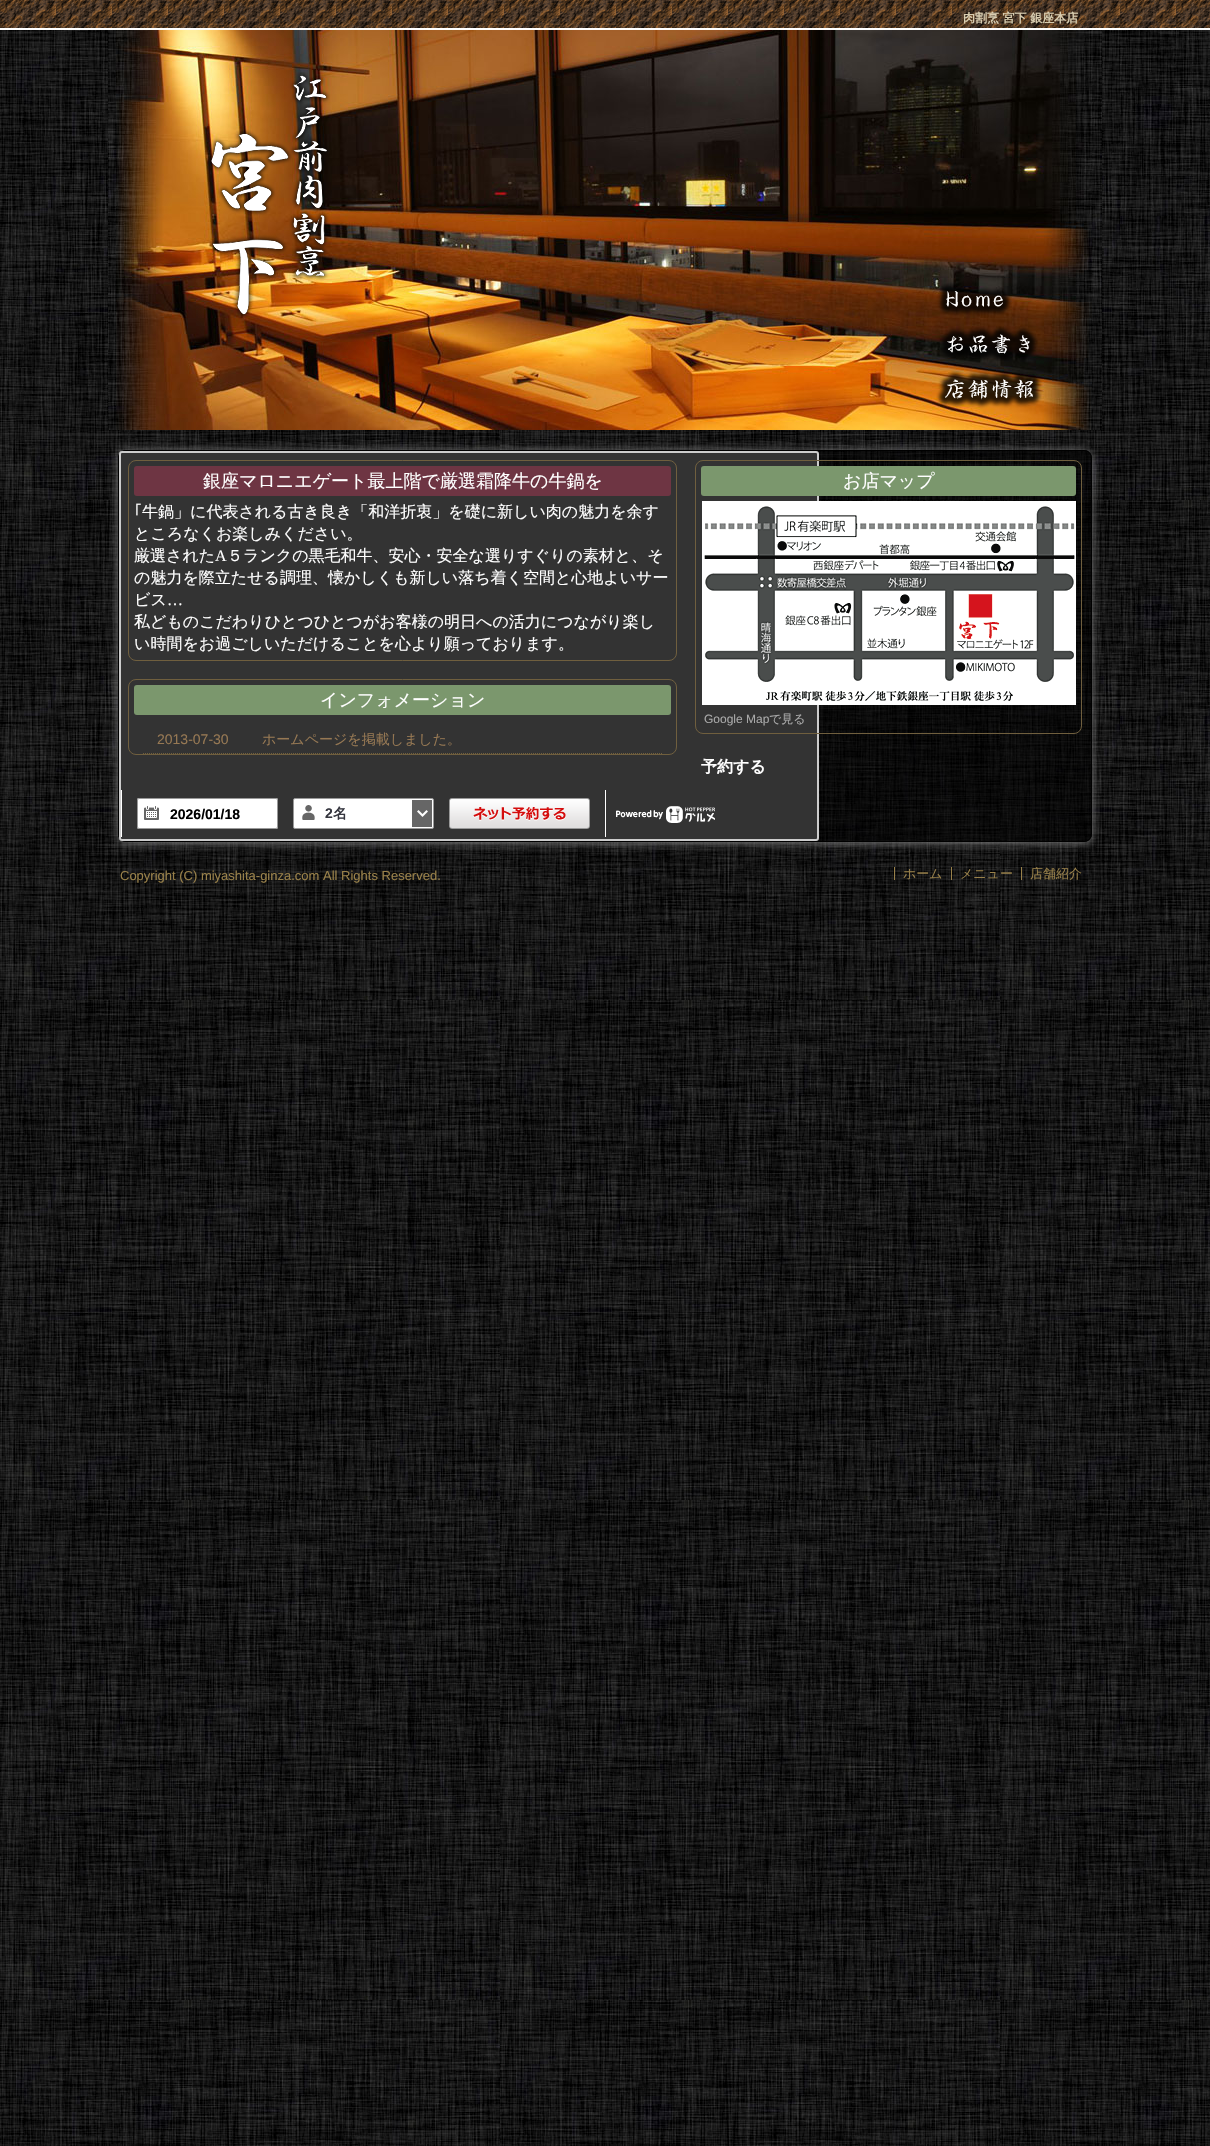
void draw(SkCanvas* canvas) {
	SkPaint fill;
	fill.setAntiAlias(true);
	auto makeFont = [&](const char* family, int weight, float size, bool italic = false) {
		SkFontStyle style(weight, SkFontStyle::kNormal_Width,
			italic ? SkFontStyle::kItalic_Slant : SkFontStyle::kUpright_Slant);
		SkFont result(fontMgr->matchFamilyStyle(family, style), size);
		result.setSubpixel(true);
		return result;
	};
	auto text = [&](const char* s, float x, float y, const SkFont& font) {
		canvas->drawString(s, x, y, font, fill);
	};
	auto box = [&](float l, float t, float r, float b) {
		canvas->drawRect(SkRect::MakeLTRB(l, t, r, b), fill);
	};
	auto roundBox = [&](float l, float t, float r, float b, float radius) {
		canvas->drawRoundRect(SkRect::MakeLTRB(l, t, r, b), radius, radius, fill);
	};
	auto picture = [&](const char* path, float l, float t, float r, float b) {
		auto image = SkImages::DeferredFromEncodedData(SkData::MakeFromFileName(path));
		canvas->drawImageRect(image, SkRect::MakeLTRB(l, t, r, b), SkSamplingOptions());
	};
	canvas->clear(0xFFFFFFFF);
	picture("image0.png", 0, 30, 1210, 2146);
	picture("image1.png", 0, 0, 1210, 30);
	picture("image6.png", 108, 30, 1102, 430);
	picture("image2.png", 207, 72, 330, 318);
	picture("image3.png", 937, 283, 1012, 316);
	picture("image4.png", 939, 326, 1038, 361);
	picture("image5.png", 936, 370, 1042, 409);
	canvas->save();
	canvas->clipPath(SkPathBuilder(SkPathFillType::kEvenOdd).moveTo(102, 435).lineTo(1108, 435).lineTo(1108, 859).lineTo(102, 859).close().moveTo(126, 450).lineTo(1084, 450).cubicTo(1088.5f, 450, 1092, 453.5f, 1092, 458).lineTo(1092, 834).cubicTo(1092, 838.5f, 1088.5f, 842, 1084, 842).lineTo(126, 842).cubicTo(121.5f, 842, 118, 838.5f, 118, 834).lineTo(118, 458).cubicTo(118, 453.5f, 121.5f, 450, 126, 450).close().detach(), true);
	fill.setColor(0xFF808080);
	fill.setMaskFilter(SkMaskFilter::MakeBlur(kNormal_SkBlurStyle, 5));
	canvas->drawRoundRect(SkRect::MakeLTRB(118, 451, 1092, 843), 8, 8, fill);
	fill.setMaskFilter(nullptr);
	canvas->restore();
	picture("image7.png", 118, 450, 1092, 842);
	fill.setStyle(SkPaint::kStroke_Style);
	fill.setStrokeWidth(1);
	fill.setColor(0xFF000000);
	canvas->drawRoundRect(SkRect::MakeLTRB(118.5f, 450.5f, 1091.5f, 841.5f), 7.5f, 7.5f, fill);
	fill.setStyle(SkPaint::kFill_Style);
	fill.setColor(0xFF333333);
	canvas->drawRoundRect(SkRect::MakeLTRB(120, 452, 818, 840), 2, 2, fill);
	fill.setStyle(SkPaint::kStroke_Style);
	fill.setStrokeWidth(2);
	fill.setColor(0xFFCCCCCC);
	canvas->drawRoundRect(SkRect::MakeLTRB(120, 452, 818, 840), 2, 2, fill);
	fill.setStrokeWidth(1);
	fill.setColor(0xFF705F3E);
	canvas->drawRoundRect(SkRect::MakeLTRB(128.5f, 460.5f, 676.5f, 660.5f), 7.5f, 7.5f, fill);
	fill.setStyle(SkPaint::kFill_Style);
	fill.setColor(0xFF6E3543);
	roundBox(134, 466, 671, 496, 3);
	fill.setStyle(SkPaint::kStroke_Style);
	fill.setColor(0xFF705F3E);
	canvas->drawRoundRect(SkRect::MakeLTRB(695.5f, 460.5f, 1081.5f, 733.5f), 7.5f, 7.5f, fill);
	fill.setStyle(SkPaint::kFill_Style);
	fill.setColor(0xFF7B976D);
	roundBox(701, 466, 1076, 496, 3);
	picture("image8.png", 702, 501, 1076, 705);
	fill.setStyle(SkPaint::kStroke_Style);
	fill.setColor(0xFF705F3E);
	canvas->drawRoundRect(SkRect::MakeLTRB(128.5f, 679.5f, 676.5f, 754.5f), 7.5f, 7.5f, fill);
	fill.setStyle(SkPaint::kFill_Style);
	fill.setColor(0xFF7B976D);
	roundBox(134, 685, 671, 715, 3);
	fill.setStyle(SkPaint::kStroke_Style);
	fill.setColor(0xFF705F3E);
	fill.setPathEffect(SkDashPathEffect::Make({{1, 1}}, 0));
	canvas->drawPath(SkPathBuilder().moveTo(143, 753.5f).lineTo(662, 753.5f).detach(), fill);
	fill.setPathEffect(nullptr);
	fill.setStyle(SkPaint::kFill_Style);
	fill.setColor(0xFFFFFFFF);
	box(605, 790, 606, 837);
	box(121, 790, 122, 837);
	roundBox(137, 798, 278, 829, 2);
	picture("image9.png", 144, 806, 159, 820);
	fill.setStyle(SkPaint::kStroke_Style);
	fill.setColor(0xFF999999);
	canvas->drawRoundRect(SkRect::MakeLTRB(137.5f, 798.5f, 277.5f, 828.5f), 1.5f, 1.5f, fill);
	fill.setStyle(SkPaint::kFill_Style);
	fill.setColor(0xFFFFFFFF);
	canvas->drawRoundRect(SkRect::MakeLTRB(293.5f, 798.5f, 433.5f, 828.5f), 1.5f, 1.5f, fill);
	fill.setStyle(SkPaint::kStroke_Style);
	fill.setColor(0xFF999999);
	canvas->drawRoundRect(SkRect::MakeLTRB(293.5f, 798.5f, 433.5f, 828.5f), 1.5f, 1.5f, fill);
	picture("image10.png", 302, 805, 315, 820);
	fill.setStyle(SkPaint::kFill_Style);
	fill.setColor(0xFF666666);
	box(412, 800, 432, 827);
	picture("image11.png", 417, 810, 428, 817);
	picture("image12.png", 449, 798, 590, 829);
	picture("image13.png", 616, 806, 715, 823);
	fill.setColor(0xFF99814A);
	box(894, 867, 895, 880);
	box(951, 867, 952, 880);
	box(1021, 867, 1022, 880);
	auto font1 = makeFont("WenQuanYi Zen Hei", 700, 12);
	fill.setColor(0xFFD8CDB0);
	text("肉割烹 宮下 銀座本店", 963, 22, font1);
	auto font2 = makeFont("WenQuanYi Zen Hei", 500, 18);
	fill.setColor(0xFFFFFFFF);
	text("銀座マロニエゲート最上階で厳選霜降牛の牛鍋を", 203, 487, font2);
	auto font3 = makeFont("IPAGothic", 400, 16);
	text("｢", 134, 517, font3);
	auto font4 = makeFont("WenQuanYi Zen Hei", 500, 16);
	text("牛鍋」に代表される古き良き「和洋折衷」を礎に新しい肉の魅力を余す", 142, 517, font4);
	text("ところなくお楽しみください。", 134, 539, font4);
	text("厳選された", 134, 561, font4);
	auto font5 = makeFont("Liberation Serif", 400, 16);
	text("A", 215, 561, font5);
	text("５ランクの黒毛和牛、安心・安全な選りすぐりの素材と、そ", 227, 561, font4);
	text("の魅力を際立たせる調理、懐かしくも新しい落ち着く空間と心地よいサー", 134, 583, font4);
	text("ビス", 134, 605, font4);
	text("…", 167, 605, font5);
	text("私どものこだわりひとつひとつがお客様の明日への活力につながり楽し", 134, 627, font4);
	text("い時間をお過ごしいただけることを心より願っております。", 134, 649, font4);
	text("お店マップ", 843, 487, font2);
	auto font6 = makeFont("Liberation Sans", 400, 12);
	fill.setColor(0xFFA8A8A8);
	text("Google Map", 704, 723, font6);
	auto font7 = makeFont("WenQuanYi Zen Hei", 500, 12);
	text("で見る", 769, 723, font7);
	fill.setColor(0xFFFFFFFF);
	text("インフォメーション", 320, 706, font2);
	auto font8 = makeFont("Liberation Sans", 400, 14);
	fill.setColor(0xFF967853);
	text("2013-07-30", 157, 744, font8);
	auto font9 = makeFont("WenQuanYi Zen Hei", 500, 14);
	text("ホームページを掲載しました。", 262, 744, font9);
	auto font10 = makeFont("WenQuanYi Zen Hei", 700, 16);
	fill.setColor(0xFFFFFFFF);
	text("予約する", 701, 772, font10);
	auto font11 = makeFont("Liberation Sans", 700, 14);
	fill.setColor(0xFF000000);
	text("2026/01/18", 170, 819, font11);
	fill.setColor(0xFF35363F);
	text("2", 325, 818, font11);
	auto font12 = makeFont("WenQuanYi Zen Hei", 700, 14);
	text("名", 333, 818, font12);
	auto font13 = makeFont("Liberation Sans", 400, 13);
	fill.setColor(0xFF99814A);
	text("Copyright (C) miyashita-ginza.com All Rights Reserved.", 120, 880, font13);
	auto font14 = makeFont("WenQuanYi Zen Hei", 500, 13);
	text("ホーム", 903, 878, font14);
	text("メニュー", 960, 878, font14);
	text("店舗紹介", 1030, 878, font14);
}
